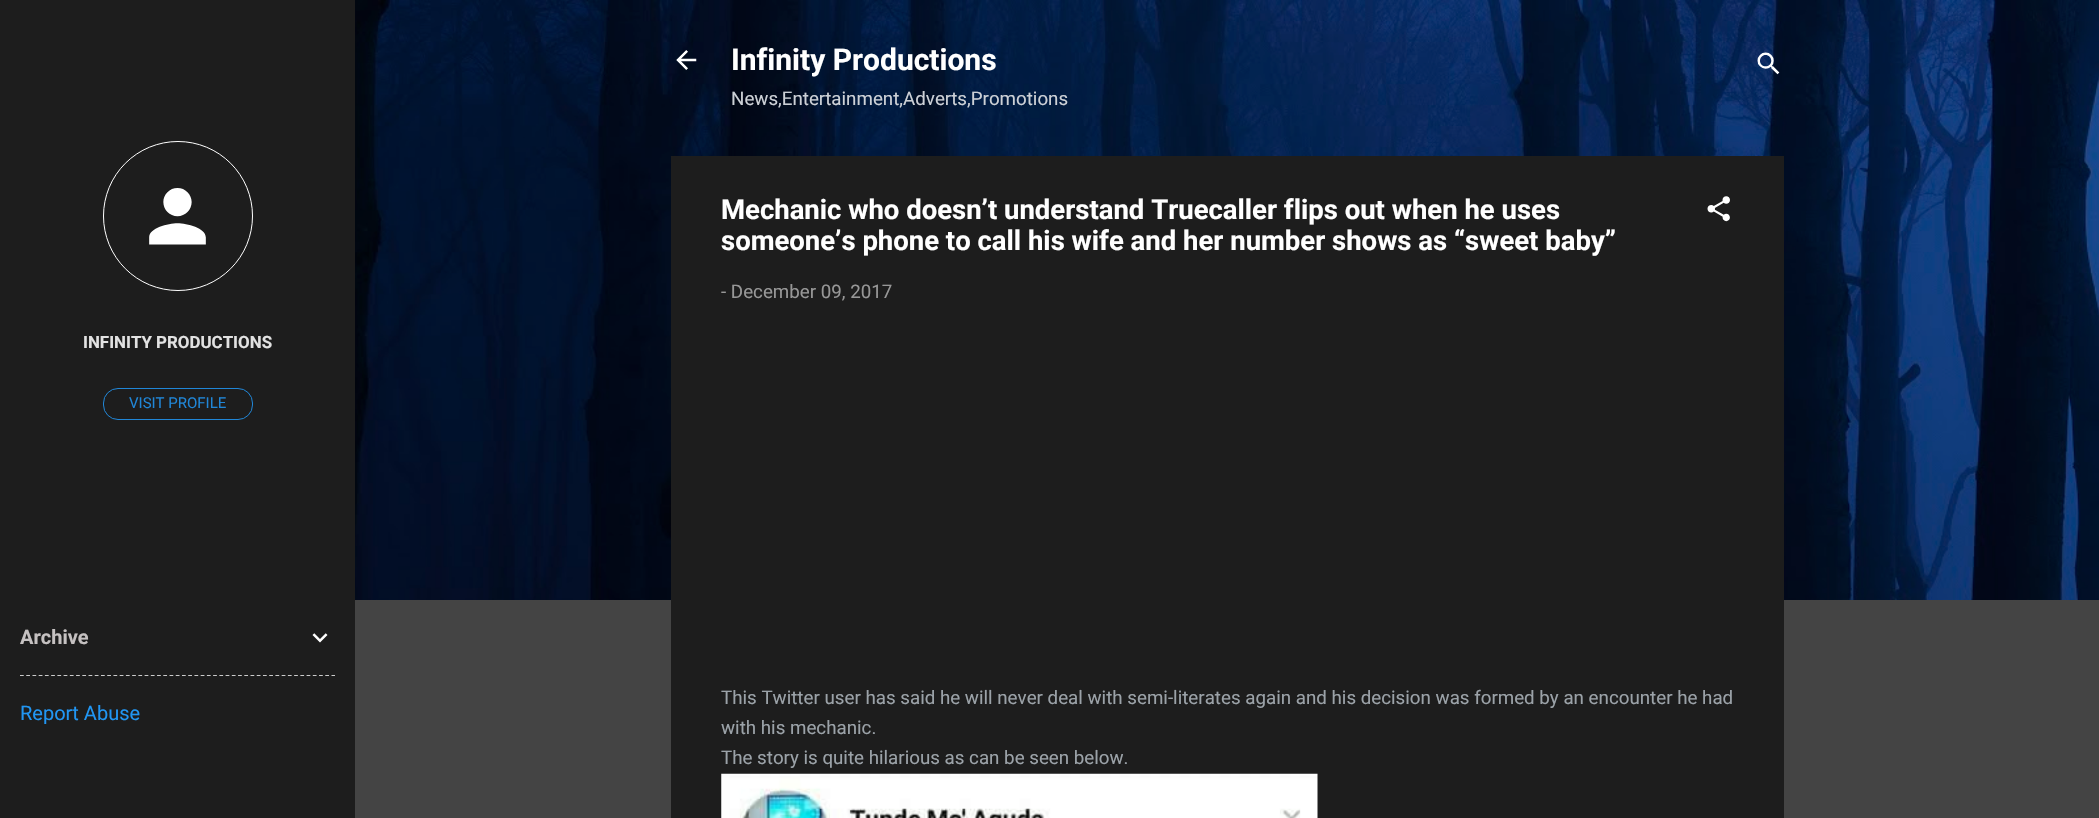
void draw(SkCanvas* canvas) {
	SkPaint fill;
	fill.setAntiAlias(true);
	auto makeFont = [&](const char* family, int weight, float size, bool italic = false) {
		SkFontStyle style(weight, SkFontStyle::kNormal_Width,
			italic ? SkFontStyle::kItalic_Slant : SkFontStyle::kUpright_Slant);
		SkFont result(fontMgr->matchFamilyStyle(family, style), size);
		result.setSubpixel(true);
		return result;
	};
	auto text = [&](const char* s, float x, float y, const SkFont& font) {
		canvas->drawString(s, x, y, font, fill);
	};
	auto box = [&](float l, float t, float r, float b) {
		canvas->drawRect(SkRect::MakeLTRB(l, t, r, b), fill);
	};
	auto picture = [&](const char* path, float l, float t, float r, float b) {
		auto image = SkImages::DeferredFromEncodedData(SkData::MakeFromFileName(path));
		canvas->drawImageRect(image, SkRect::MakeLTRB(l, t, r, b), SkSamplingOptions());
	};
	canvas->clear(0xFF444444);
	fill.setColor(0xFF1D1D1D);
	box(0, 0, 355, 818);
	fill.setStyle(SkPaint::kStroke_Style);
	fill.setStrokeWidth(1);
	fill.setColor(0xFFFFFFFF);
	canvas->drawCircle(178, 216, 74.5f, fill);
	picture("image0.png", 149, 188, 206, 245);
	fill.setColor(0xFF2086D7);
	canvas->drawRoundRect(SkRect::MakeLTRB(103.5f, 388.5f, 252.5f, 419.5f), 14.5f, 14.5f, fill);
	picture("image1.png", 312, 633, 328, 643);
	fill.setStrokeWidth(1.2f);
	fill.setColor(0xFFCCCCCC);
	fill.setPathEffect(SkDashPathEffect::Make({{3.75f, 2.48f}}, 0));
	canvas->drawPath(SkPathBuilder().moveTo(20, 675.5f).lineTo(335, 675.5f).detach(), fill);
	fill.setPathEffect(nullptr);
	picture("image2.png", 355, 0, 2099, 600);
	picture("image3.png", 676, 50, 697, 70);
	picture("image4.png", 1757, 52, 1780, 75);
	fill.setStyle(SkPaint::kFill_Style);
	fill.setColor(0xFF1D1D1D);
	box(671, 156, 1784, 818);
	picture("image5.png", 1707, 196, 1730, 222);
	picture("image6.png", 721, 773, 1318, 818);
	auto font1 = makeFont("Roboto", 700, 16.9f);
	fill.setColor(0xFFE2E2E2);
	text("INFINITY PRODUCTIONS", 83, 348, font1);
	auto font2 = makeFont("Roboto", 400, 15);
	fill.setColor(0xFF2086D7);
	text("VISIT PROFILE", 129, 408, font2);
	auto font3 = makeFont("Roboto", 700, 20);
	fill.setColor(0xFFC5C1C1);
	text("Archive", 20, 644, font3);
	auto font4 = makeFont("Roboto", 400, 20);
	fill.setColor(0xFF2196F3);
	text("Report Abuse", 20, 720, font4);
	auto font5 = makeFont("Roboto", 700, 30);
	fill.setColor(0xFFFFFFFF);
	text("Infinity Productions", 731, 70, font5);
	auto font6 = makeFont("Roboto", 400, 18.75f);
	fill.setColor(0xFFCCD0D6);
	text("News,Entertainment,Adverts,Promotions", 731, 105, font6);
	auto font7 = makeFont("Roboto", 700, 27.5f);
	fill.setColor(0xFFFFFFFF);
	text("Mechanic who doesn’t understand Truecaller flips out when he uses", 721, 219, font7);
	text("someone’s phone to call his wife and her number shows as “sweet baby”", 721, 250, font7);
	fill.setColor(0xFF979797);
	text("- December 09, 2017", 721, 298, font6);
	fill.setColor(0xFF9BA2A8);
	text("This Twitter user has said he will never deal with semi-literates again and his decision was formed by an encounter he had", 721, 704, font6);
	text("with his mechanic.", 721, 734, font6);
	text("The story is quite hilarious as can be seen below.", 721, 764, font6);
}
